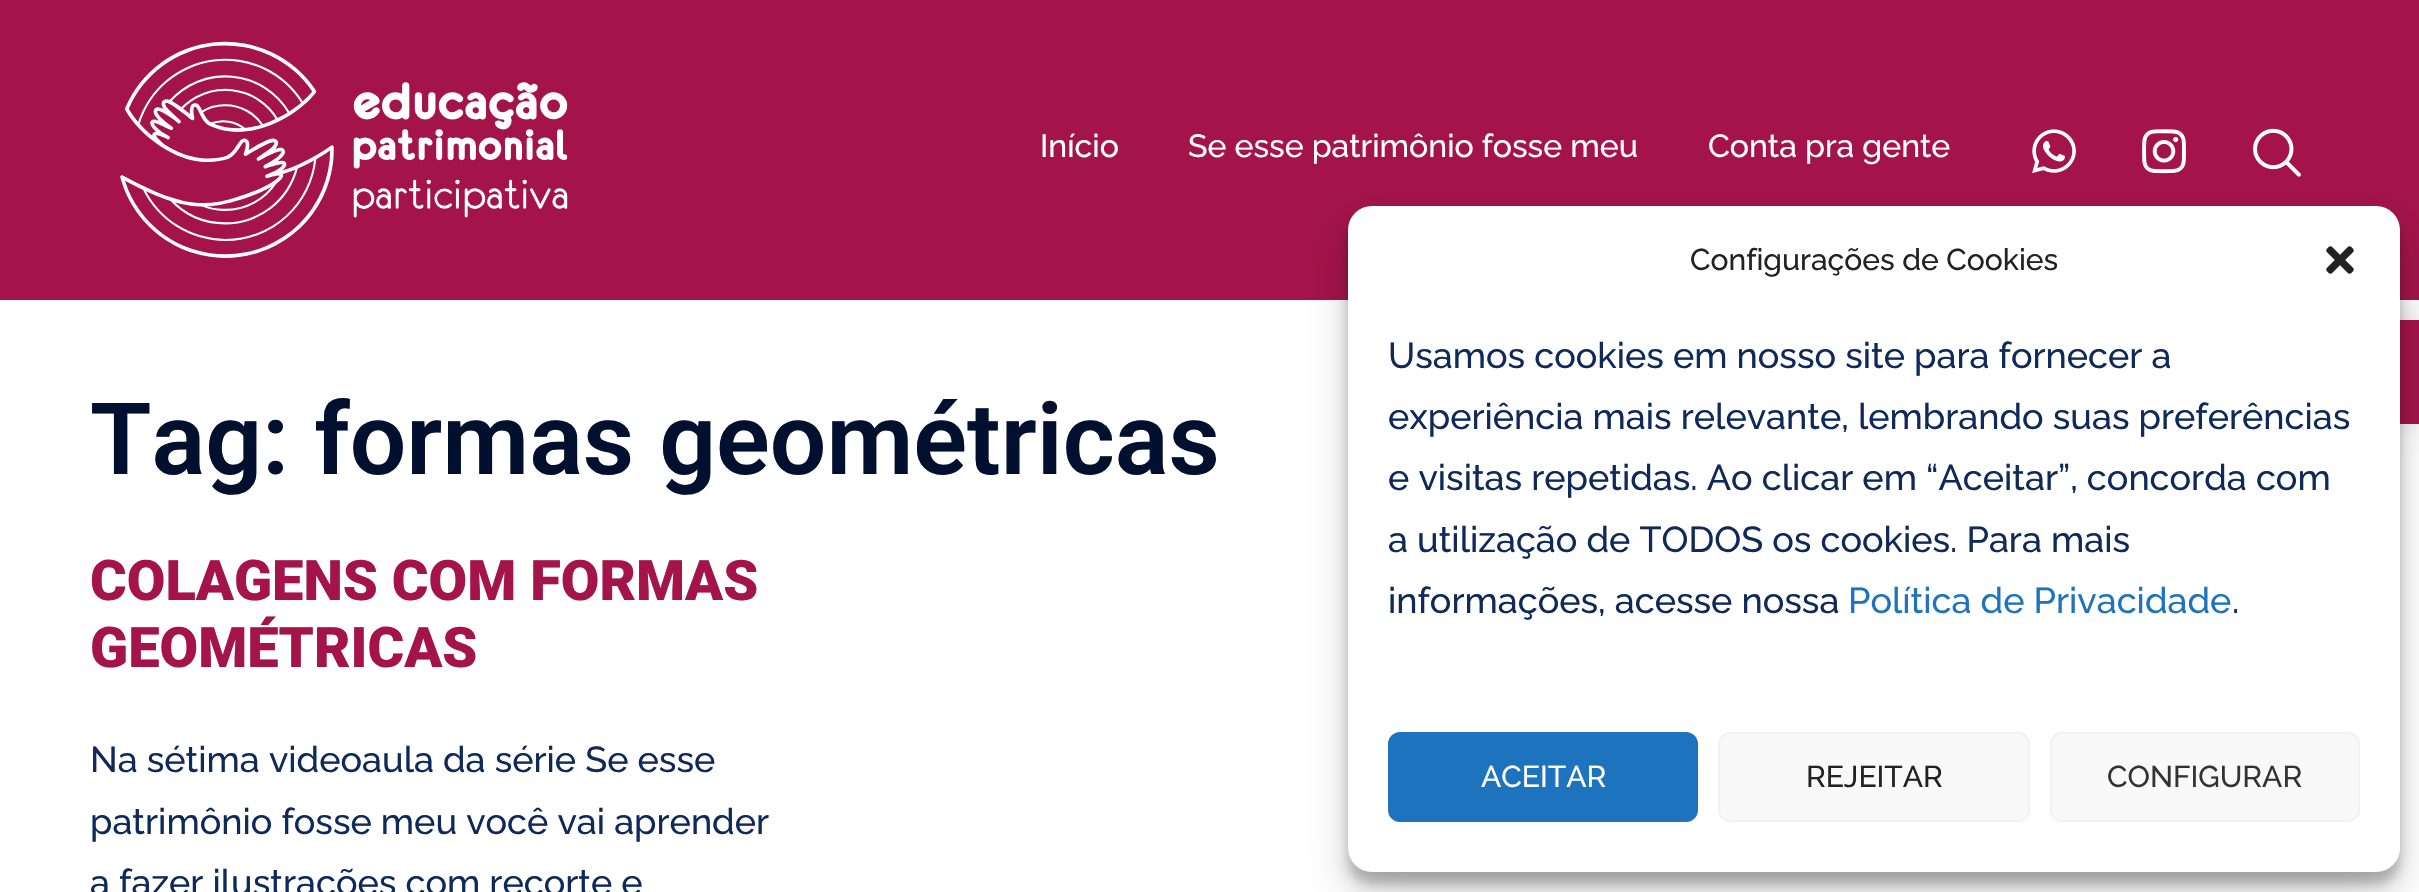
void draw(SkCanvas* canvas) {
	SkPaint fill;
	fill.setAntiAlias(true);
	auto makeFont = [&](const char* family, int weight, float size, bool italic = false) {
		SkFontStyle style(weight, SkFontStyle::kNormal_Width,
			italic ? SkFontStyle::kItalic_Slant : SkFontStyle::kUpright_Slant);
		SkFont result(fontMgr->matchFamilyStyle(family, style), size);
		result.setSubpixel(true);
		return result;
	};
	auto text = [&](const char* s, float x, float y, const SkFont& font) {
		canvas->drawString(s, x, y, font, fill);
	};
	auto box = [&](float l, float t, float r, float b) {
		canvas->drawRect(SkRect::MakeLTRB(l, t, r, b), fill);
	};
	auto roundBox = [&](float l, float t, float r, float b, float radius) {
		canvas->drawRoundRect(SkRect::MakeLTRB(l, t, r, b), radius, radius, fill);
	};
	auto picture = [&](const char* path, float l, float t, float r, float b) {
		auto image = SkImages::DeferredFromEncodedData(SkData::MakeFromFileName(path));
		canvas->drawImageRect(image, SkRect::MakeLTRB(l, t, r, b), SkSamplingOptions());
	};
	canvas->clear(0xFFFFFFFF);
	fill.setColor(0xFFA4144A);
	box(0, 0, 2419, 300);
	picture("image0.png", 120, 41, 568, 258);
	picture("image1.png", 2032, 129, 2076, 174);
	picture("image2.png", 2142, 129, 2186, 174);
	picture("image3.png", 2253, 128, 2301, 177);
	fill.setColor(0x1A000000);
	fill.setMaskFilter(SkMaskFilter::MakeBlur(kNormal_SkBlurStyle, 10));
	canvas->drawRect(SkRect::MakeLTRB(2316, 320, 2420, 424), fill);
	fill.setMaskFilter(nullptr);
	fill.setColor(0xFFA4144A);
	box(2400, 320, 2419, 424);
	fill.setColor(0x3B000000);
	fill.setMaskFilter(SkMaskFilter::MakeBlur(kNormal_SkBlurStyle, 6));
	canvas->drawRoundRect(SkRect::MakeLTRB(1348, 218, 2400, 884), 24, 24, fill);
	fill.setMaskFilter(nullptr);
	fill.setColor(0x30000000);
	fill.setMaskFilter(SkMaskFilter::MakeBlur(kNormal_SkBlurStyle, 20));
	canvas->drawRoundRect(SkRect::MakeLTRB(1348, 226, 2400, 892), 24, 24, fill);
	fill.setMaskFilter(nullptr);
	fill.setColor(0xFFFFFFFF);
	roundBox(1348, 206, 2400, 872, 24);
	picture("image4.png", 2326, 246, 2354, 274);
	fill.setColor(0xFF1E73BE);
	canvas->drawRoundRect(SkRect::MakeLTRB(1389, 733, 1697, 821), 11, 11, fill);
	fill.setStyle(SkPaint::kStroke_Style);
	fill.setStrokeWidth(2);
	canvas->drawRoundRect(SkRect::MakeLTRB(1389, 733, 1697, 821), 11, 11, fill);
	fill.setStyle(SkPaint::kFill_Style);
	fill.setColor(0xFFF9F9F9);
	canvas->drawRoundRect(SkRect::MakeLTRB(1719, 733, 2029, 821), 11, 11, fill);
	fill.setStyle(SkPaint::kStroke_Style);
	fill.setColor(0xFFF2F2F2);
	canvas->drawRoundRect(SkRect::MakeLTRB(1719, 733, 2029, 821), 11, 11, fill);
	fill.setStyle(SkPaint::kFill_Style);
	fill.setColor(0xFFF9F9F9);
	canvas->drawRoundRect(SkRect::MakeLTRB(2051, 733, 2359, 821), 11, 11, fill);
	fill.setStyle(SkPaint::kStroke_Style);
	fill.setColor(0xFFF2F2F2);
	canvas->drawRoundRect(SkRect::MakeLTRB(2051, 733, 2359, 821), 11, 11, fill);
	auto font1 = makeFont("Raleway", 500, 32);
	fill.setStyle(SkPaint::kFill_Style);
	fill.setColor(0xFFFFFFFF);
	text("Início", 1040, 157, font1);
	text("Se esse patrimônio fosse meu", 1188, 157, font1);
	text("Conta pra gente", 1708, 157, font1);
	auto font2 = makeFont("Roboto", 600, 100);
	fill.setColor(0xFF00102E);
	text("Tag: formas geométricas", 90, 474, font2);
	auto font3 = makeFont("Roboto", 900, 56);
	fill.setColor(0xFFA4144A);
	text("COLAGENS COM FORMAS", 90, 600, font3);
	text("GEOMÉTRICAS", 90, 667, font3);
	auto font4 = makeFont("Raleway", 500, 36);
	fill.setColor(0xFF0E295A);
	text("Na sétima videoaula da série Se esse", 90, 772, font4);
	text("patrimônio fosse meu você vai aprender", 90, 834, font4);
	text("a fazer ilustrações com recorte e", 90, 895, font4);
	auto font5 = makeFont("Raleway", 500, 30);
	fill.setColor(0xFF222222);
	text("Configurações de Cookies", 1690, 270, font5);
	fill.setColor(0xFF0E295A);
	text("Usamos cookies em nosso site para fornecer a", 1388, 368, font4);
	text("experiência mais relevante, lembrando suas preferências", 1388, 429, font4);
	text("e visitas repetidas. Ao clicar em “Aceitar”, concorda com", 1388, 490, font4);
	text("a utilização de TODOS os cookies. Para mais", 1388, 552, font4);
	text("informações, acesse nossa", 1388, 613, font4);
	fill.setColor(0xFF1E73BE);
	text("Política de Privacidade", 1848, 613, font4);
	fill.setColor(0xFF0E295A);
	text(".", 2232, 613, font4);
	fill.setColor(0xFFFFFFFF);
	text("ACEITAR", 1481, 787, font5);
	fill.setColor(0xFF222222);
	text("REJEITAR", 1806, 787, font5);
	fill.setColor(0xFF333333);
	text("CONFIGURAR", 2107, 787, font5);
}
